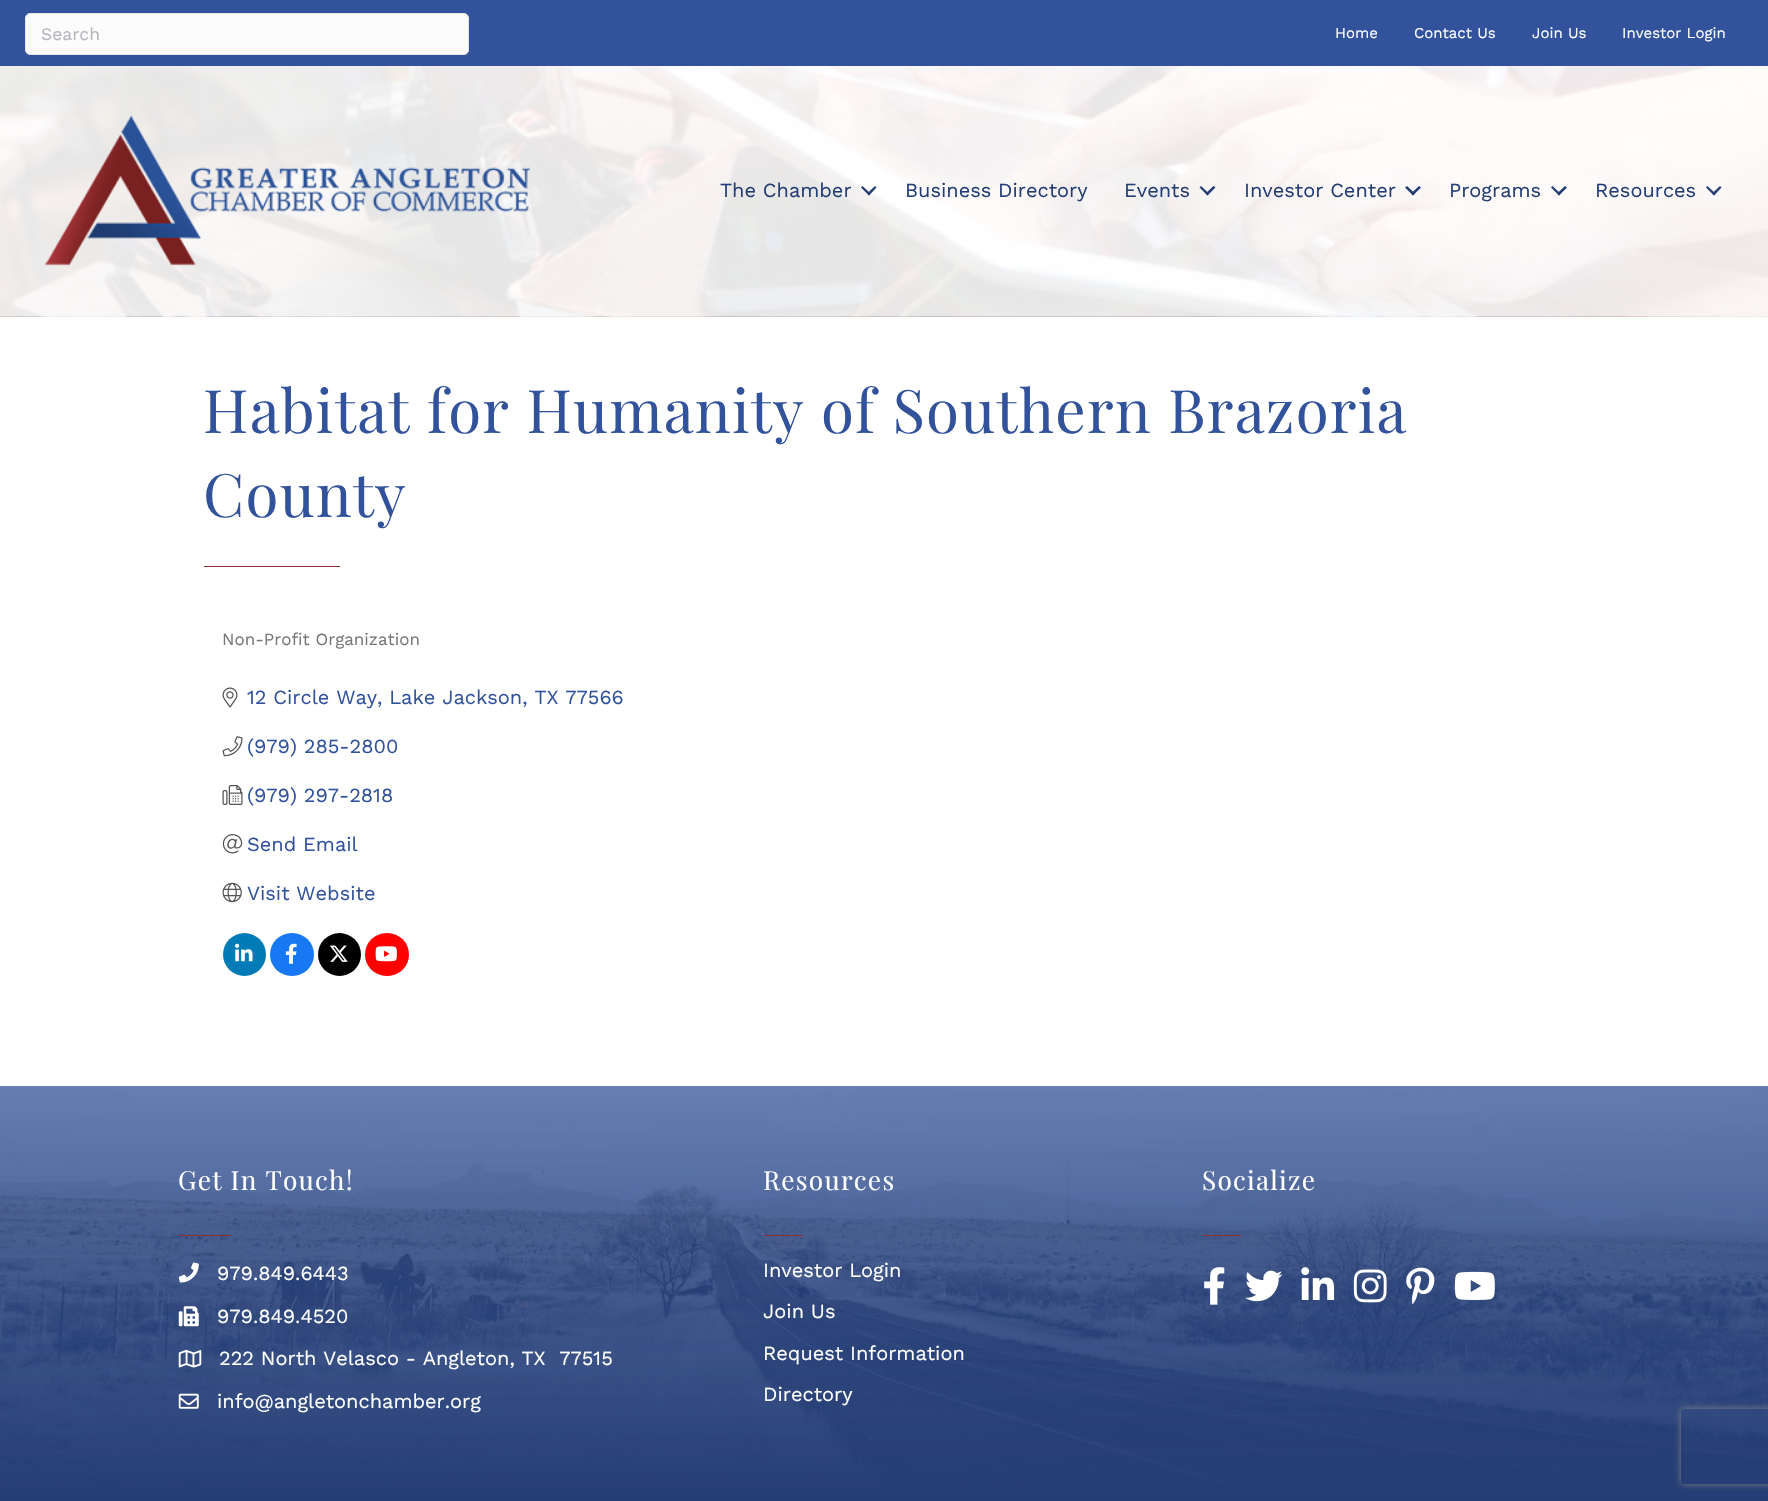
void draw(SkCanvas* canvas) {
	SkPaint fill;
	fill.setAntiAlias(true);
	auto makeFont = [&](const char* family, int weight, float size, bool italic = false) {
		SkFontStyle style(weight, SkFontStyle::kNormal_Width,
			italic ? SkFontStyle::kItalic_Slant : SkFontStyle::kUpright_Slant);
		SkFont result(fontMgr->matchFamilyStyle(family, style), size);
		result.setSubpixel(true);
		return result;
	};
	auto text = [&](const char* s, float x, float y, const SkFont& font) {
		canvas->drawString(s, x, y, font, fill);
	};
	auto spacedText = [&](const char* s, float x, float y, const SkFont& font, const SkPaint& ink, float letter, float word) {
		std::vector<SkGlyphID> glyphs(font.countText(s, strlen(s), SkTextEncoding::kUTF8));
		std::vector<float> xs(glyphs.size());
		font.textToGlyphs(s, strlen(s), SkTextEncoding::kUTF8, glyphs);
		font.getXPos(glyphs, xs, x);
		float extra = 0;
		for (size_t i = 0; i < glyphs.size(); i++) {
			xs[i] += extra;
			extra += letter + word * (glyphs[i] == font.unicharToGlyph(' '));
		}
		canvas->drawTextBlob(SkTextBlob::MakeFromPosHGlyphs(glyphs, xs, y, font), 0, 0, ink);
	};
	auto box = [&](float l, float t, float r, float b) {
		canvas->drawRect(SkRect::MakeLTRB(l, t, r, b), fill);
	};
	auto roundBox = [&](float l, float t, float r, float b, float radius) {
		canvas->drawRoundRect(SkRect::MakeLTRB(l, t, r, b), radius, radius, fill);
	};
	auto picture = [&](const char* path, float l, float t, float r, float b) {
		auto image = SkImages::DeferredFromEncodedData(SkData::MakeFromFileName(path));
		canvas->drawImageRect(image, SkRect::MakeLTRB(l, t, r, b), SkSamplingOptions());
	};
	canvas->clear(0xFFFFFFFF);
	fill.setColor(0xFF32539B);
	box(0, 0, 1768, 66);
	fill.setColor(0xFFFCFCFC);
	canvas->drawRoundRect(SkRect::MakeLTRB(25.5f, 13.5f, 468.5f, 54.5f), 4.5f, 4.5f, fill);
	fill.setStyle(SkPaint::kStroke_Style);
	fill.setStrokeWidth(1);
	fill.setColor(0xFFE6E6E6);
	canvas->drawRoundRect(SkRect::MakeLTRB(25.5f, 13.5f, 468.5f, 54.5f), 4.5f, 4.5f, fill);
	picture("image1.png", 0, 66, 1768, 317);
	picture("image0.png", 45, 115, 531, 266);
	fill.setStyle(SkPaint::kFill_Style);
	fill.setColor(0xFF243D74);
	canvas->drawPath(SkPathBuilder().moveTo(875, 186).lineTo(876.5f, 187.5f).lineTo(869, 195.5f).lineTo(867, 193.5f).close().detach(), fill);
	canvas->drawPath(SkPathBuilder().moveTo(862.5f, 186).lineTo(870.5f, 193.5f).lineTo(869, 195.5f).lineTo(861, 187.5f).close().detach(), fill);
	canvas->drawPath(SkPathBuilder().moveTo(1213.5f, 186).lineTo(1215.5f, 187.5f).lineTo(1207.5f, 195.5f).lineTo(1205.5f, 193.5f).close().detach(), fill);
	canvas->drawPath(SkPathBuilder().moveTo(1201, 186).lineTo(1209, 193.5f).lineTo(1207.5f, 195.5f).lineTo(1199.5f, 187.5f).close().detach(), fill);
	canvas->drawPath(SkPathBuilder().moveTo(1419, 186).lineTo(1421, 187.5f).lineTo(1413, 195.5f).lineTo(1411, 193.5f).close().detach(), fill);
	canvas->drawPath(SkPathBuilder().moveTo(1407, 186).lineTo(1415, 193.5f).lineTo(1413, 195.5f).lineTo(1405, 187.5f).close().detach(), fill);
	canvas->drawPath(SkPathBuilder().moveTo(1565, 186).lineTo(1567, 187.5f).lineTo(1559, 195.5f).lineTo(1557, 193.5f).close().detach(), fill);
	canvas->drawPath(SkPathBuilder().moveTo(1552.5f, 186).lineTo(1560.5f, 193.5f).lineTo(1559, 195.5f).lineTo(1551, 187.5f).close().detach(), fill);
	canvas->drawPath(SkPathBuilder().moveTo(1720, 186).lineTo(1721.5f, 187.5f).lineTo(1714, 195.5f).lineTo(1712, 193.5f).close().detach(), fill);
	canvas->drawPath(SkPathBuilder().moveTo(1707.5f, 186).lineTo(1715.5f, 193.5f).lineTo(1714, 195.5f).lineTo(1706, 187.5f).close().detach(), fill);
	fill.setColor(0xFF902D30);
	box(204, 566, 340, 567);
	picture("image2.png", 222, 687, 238, 708);
	picture("image3.png", 222, 736, 243, 757);
	picture("image4.png", 222, 785, 243, 805);
	picture("image5.png", 222, 834, 243, 854);
	picture("image6.png", 222, 882, 242, 903);
	fill.setColor(0xFF007BB5);
	canvas->drawCircle(244.5f, 954.5f, 21.5f, fill);
	picture("image7.png", 235, 943, 253, 962);
	fill.setColor(0xFF1877F2);
	roundBox(270, 933, 314, 976, 21.5f);
	picture("image8.png", 285, 943, 297, 964);
	fill.setColor(0xFF000000);
	canvas->drawCircle(339.5f, 954.5f, 21.5f, fill);
	picture("image9.png", 329, 945, 348, 962);
	fill.setColor(0xFFFF0000);
	roundBox(365, 933, 409, 976, 21.5f);
	picture("image10.png", 375, 946, 397, 962);
	picture("image11.png", 0, 1086, 1768, 1493);
	{
		const SkColor colors[] = {0xB332539B, 0xFF243D74};
		const float stops[] = {0, 1};
		const SkPoint ends[] = {{884, 1086}, {884, 1501}};
		fill.setShader(SkGradientShader::MakeLinear(ends, colors, stops, 2, SkTileMode::kClamp));
		fill.setAlpha(255);
	}
	box(0, 1086, 1768, 1501);
	fill.setShader(nullptr);
	fill.setColor(0xFF902D30);
	box(179, 1235, 231, 1236);
	picture("image12.png", 178, 1262, 199, 1283);
	picture("image13.png", 178, 1306, 199, 1327);
	picture("image14.png", 178, 1350, 202, 1368);
	picture("image15.png", 178, 1393, 199, 1409);
	box(764, 1235, 803, 1236);
	box(1203, 1235, 1241, 1236);
	picture("image16.png", 1204, 1267, 1225, 1305);
	picture("image17.png", 1245, 1270, 1283, 1302);
	picture("image18.png", 1301, 1267, 1335, 1300);
	picture("image19.png", 1353, 1269, 1387, 1303);
	picture("image20.png", 1406, 1267, 1435, 1305);
	picture("image21.png", 1454, 1271, 1495, 1300);
	canvas->save();
	canvas->clipPath(SkPathBuilder(SkPathFillType::kEvenOdd).moveTo(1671, 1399).lineTo(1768, 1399).lineTo(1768, 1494).lineTo(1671, 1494).close().moveTo(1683.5f, 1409).lineTo(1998.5f, 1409).cubicTo(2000, 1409, 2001, 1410, 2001, 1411.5f).lineTo(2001, 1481.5f).cubicTo(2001, 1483, 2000, 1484, 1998.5f, 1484).lineTo(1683.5f, 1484).cubicTo(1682, 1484, 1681, 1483, 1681, 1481.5f).lineTo(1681, 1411.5f).cubicTo(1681, 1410, 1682, 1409, 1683.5f, 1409).close().detach(), true);
	fill.setColor(0xFF808080);
	fill.setMaskFilter(SkMaskFilter::MakeBlur(kNormal_SkBlurStyle, 3));
	canvas->drawRoundRect(SkRect::MakeLTRB(1681, 1409, 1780, 1484), 2.5f, 2.5f, fill);
	fill.setMaskFilter(nullptr);
	canvas->restore();
	auto font1 = makeFont("Work Sans", 400, 17.5f);
	fill.setColor(0xFFB3B5BB);
	text("Search", 41, 40, font1);
	auto font2 = makeFont("Work Sans", 400, 15);
	fill.setColor(0xFFFFFFFF);
	text("Home", 1335, 38, font2);
	text("Contact Us", 1414, 38, font2);
	text("Join Us", 1532, 38, font2);
	text("Investor Login", 1622, 38, font2);
	auto font3 = makeFont("Work Sans", 400, 20);
	fill.setColor(0xFF243D74);
	text("The Chamber", 720, 197, font3);
	text("Business Directory", 905, 197, font3);
	text("Events", 1124, 197, font3);
	text("Investor Center", 1244, 197, font3);
	text("Programs", 1449, 197, font3);
	text("Resources", 1595, 197, font3);
	auto font4 = makeFont("Playfair Display", 400, 60);
	fill.setColor(0xFF32539B);
	spacedText("Habitat for Humanity of Southern Brazoria", 203, 433, font4, fill, 1.25f, 0);
	spacedText("County", 203, 517, font4, fill, 1.25f, 0);
	auto font5 = makeFont("Work Sans", 400, 17);
	fill.setColor(0xFF777777);
	text("Non-Profit Organization", 222, 645, font5);
	fill.setColor(0xFF32539B);
	text("12 Circle Way, Lake Jackson, TX 77566", 247, 704, font3);
	text("(979) 285-2800", 247, 753, font3);
	text("(979) 297-2818", 247, 802, font3);
	text("Send Email", 247, 851, font3);
	text("Visit Website", 247, 900, font3);
	auto font6 = makeFont("Playfair Display", 400, 26.25f);
	fill.setColor(0xFFFFFFFF);
	spacedText("Get In Touch!", 178, 1190, font6, fill, 1.25f, 0);
	text("979.849.6443", 217, 1280, font3);
	text("979.849.4520", 217, 1323, font3);
	text("222 North Velasco - Angleton, TX  77515", 219, 1365, font3);
	text("info@angletonchamber.org", 217, 1408, font3);
	spacedText("Resources", 763, 1190, font6, fill, 1.25f, 0);
	text("Investor Login", 763, 1277, font3);
	text("Join Us", 763, 1318, font3);
	text("Request Information", 763, 1360, font3);
	text("Directory", 763, 1401, font3);
	spacedText("Socialize", 1202, 1190, font6, fill, 1.25f, 0);
}
